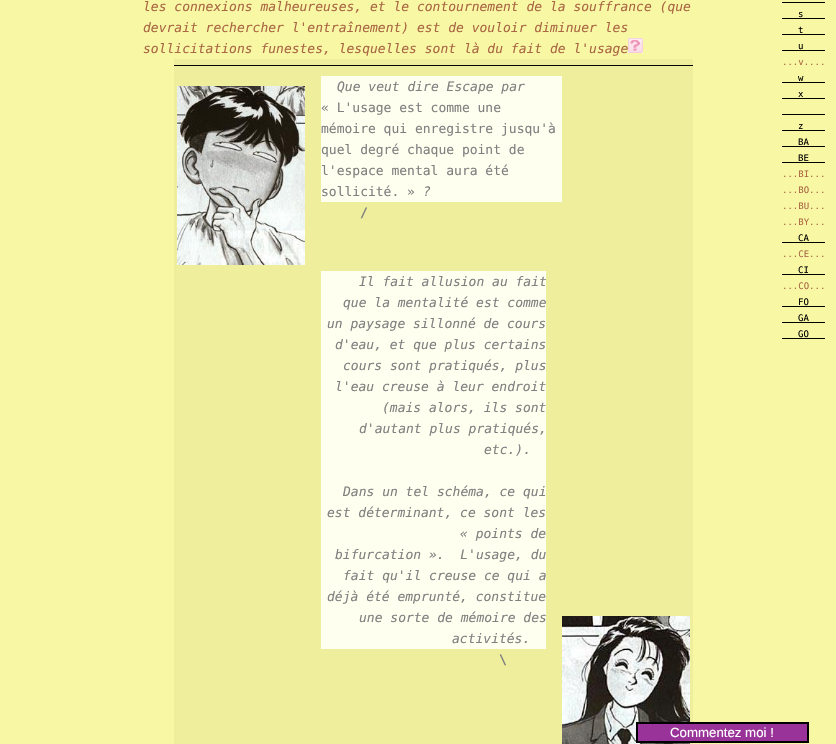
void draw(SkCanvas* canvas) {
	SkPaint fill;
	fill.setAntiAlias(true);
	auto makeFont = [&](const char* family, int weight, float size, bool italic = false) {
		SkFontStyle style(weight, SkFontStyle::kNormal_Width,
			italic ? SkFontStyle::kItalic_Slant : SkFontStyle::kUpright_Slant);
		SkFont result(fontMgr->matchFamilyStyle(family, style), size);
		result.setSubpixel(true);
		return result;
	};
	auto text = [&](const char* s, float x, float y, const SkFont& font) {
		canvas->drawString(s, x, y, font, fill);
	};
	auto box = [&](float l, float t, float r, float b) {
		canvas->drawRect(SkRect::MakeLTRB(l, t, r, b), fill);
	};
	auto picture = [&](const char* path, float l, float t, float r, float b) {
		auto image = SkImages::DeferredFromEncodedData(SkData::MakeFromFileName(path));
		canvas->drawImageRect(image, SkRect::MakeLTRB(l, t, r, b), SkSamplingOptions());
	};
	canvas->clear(0xFFF8F8A4);
	picture("image0.png", 628, 38, 643, 53);
	fill.setColor(0xFFEEEE9D);
	box(174, 59, 693, 744);
	fill.setColor(0xFF000000);
	box(174, 65, 693, 66);
	picture("image1.png", 177, 86, 305, 265);
	fill.setColor(0xFFFFFFF0);
	box(321, 76, 562, 202);
	box(321, 271, 546, 649);
	picture("image2.png", 562, 616, 690, 744);
	fill.setColor(0xFF000000);
	box(782, 2, 825, 3);
	box(782, 18, 825, 19);
	box(782, 34, 825, 35);
	box(782, 50, 825, 51);
	box(782, 82, 825, 83);
	box(782, 98, 825, 99);
	box(782, 114, 825, 115);
	box(782, 130, 825, 131);
	box(782, 146, 825, 147);
	box(782, 162, 825, 163);
	box(782, 242, 825, 243);
	box(782, 274, 825, 275);
	box(782, 306, 825, 307);
	box(782, 322, 825, 323);
	box(782, 338, 825, 339);
	fill.setColor(0xFF993399);
	canvas->drawRect(SkRect::MakeLTRB(637, 723, 808, 742), fill);
	fill.setStyle(SkPaint::kStroke_Style);
	fill.setStrokeWidth(2);
	fill.setColor(0xFF000000);
	canvas->drawRect(SkRect::MakeLTRB(637, 723, 808, 742), fill);
	auto font1 = makeFont("DejaVu Sans Mono", 400, 13, true);
	fill.setStyle(SkPaint::kFill_Style);
	fill.setColor(0xFFAA6644);
	text("les connexions malheureuses, et le contournement de la souffrance (que", 143, 11, font1);
	text("devrait rechercher l'entraînement) est de vouloir diminuer les", 143, 32, font1);
	text("sollicitations funestes, lesquelles sont là du fait de l'usage", 143, 53, font1);
	fill.setColor(0xFF808080);
	text("Que veut dire Escape par", 337, 91, font1);
	auto font2 = makeFont("DejaVu Sans Mono", 400, 13);
	text("« L'usage est comme une", 321, 112, font2);
	text("mémoire qui enregistre jusqu'à", 321, 133, font2);
	text("quel degré chaque point de", 321, 154, font2);
	text("l'espace mental aura été", 321, 175, font2);
	text("sollicité. »", 321, 196, font2);
	text("?", 423, 196, font1);
	auto font3 = makeFont("DejaVu Sans Mono", 700, 13);
	text("/", 360, 217, font3);
	text("Il fait allusion au fait", 359, 286, font1);
	text("que la mentalité est comme", 343, 307, font1);
	text("un paysage sillonné de cours", 327, 328, font1);
	text("d'eau, et que plus certains", 335, 349, font1);
	text("cours sont pratiqués, plus", 343, 370, font1);
	text("l'eau creuse à leur endroit", 335, 391, font1);
	text("(mais alors, ils sont", 382, 412, font1);
	text("d'autant plus pratiqués,", 359, 433, font1);
	text("etc.).", 484, 454, font1);
	text("Dans un tel schéma, ce qui", 343, 496, font1);
	text("est déterminant, ce sont les", 327, 517, font1);
	text("« points de", 460, 538, font1);
	text("bifurcation ».  L'usage, du", 335, 559, font1);
	text("fait qu'il creuse ce qui a", 343, 580, font1);
	text("déjà été emprunté, constitue", 327, 601, font1);
	text("une sorte de mémoire des", 359, 622, font1);
	text("activités.", 452, 643, font1);
	text("\\", 499, 664, font3);
	auto font4 = makeFont("DejaVu Sans Mono", 400, 9);
	fill.setColor(0xFF000000);
	text("s", 798, 17, font4);
	text("t", 798, 33, font4);
	text("u", 798, 49, font4);
	fill.setColor(0xFFAA6644);
	text("...v....", 782, 65, font4);
	fill.setColor(0xFF000000);
	text("w", 798, 81, font4);
	text("x", 798, 97, font4);
	text("z", 798, 129, font4);
	text("BA", 798, 145, font4);
	text("BE", 798, 161, font4);
	fill.setColor(0xFFAA6644);
	text("...BI...", 782, 177, font4);
	text("...BO...", 782, 193, font4);
	text("...BU...", 782, 209, font4);
	text("...BY...", 782, 225, font4);
	fill.setColor(0xFF000000);
	text("CA", 798, 241, font4);
	fill.setColor(0xFFAA6644);
	text("...CE...", 782, 257, font4);
	fill.setColor(0xFF000000);
	text("CI", 798, 273, font4);
	fill.setColor(0xFFAA6644);
	text("...CO...", 782, 289, font4);
	fill.setColor(0xFF000000);
	text("FO", 798, 305, font4);
	text("GA", 798, 321, font4);
	text("GO", 798, 337, font4);
	auto font5 = makeFont("Liberation Sans", 400, 13.25f);
	fill.setColor(0xFFFFFFFF);
	text("Commentez moi !", 670, 737, font5);
}
